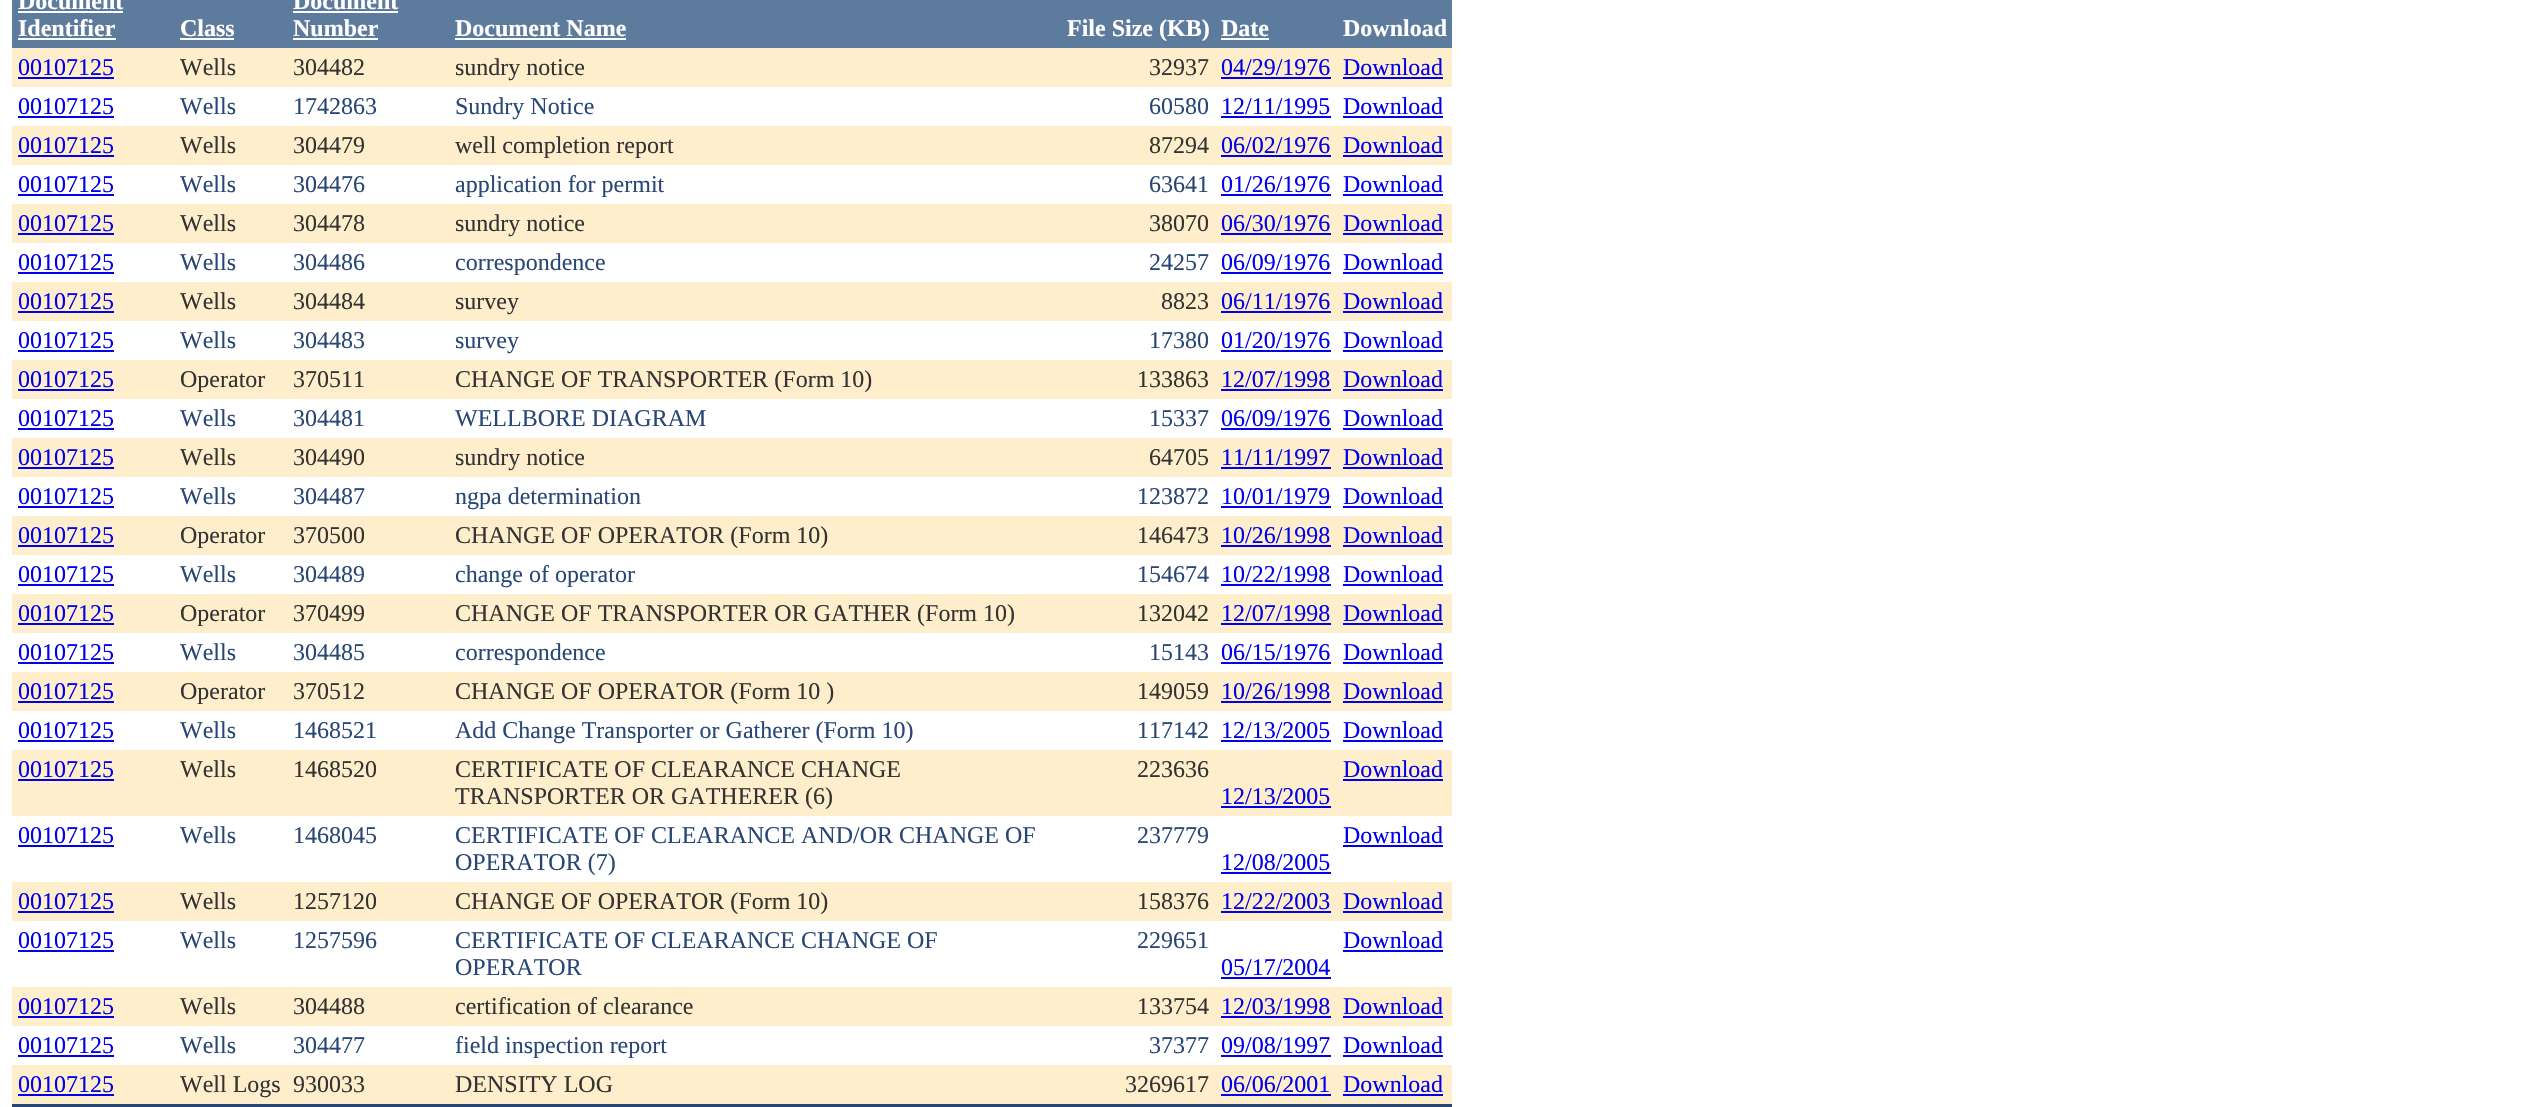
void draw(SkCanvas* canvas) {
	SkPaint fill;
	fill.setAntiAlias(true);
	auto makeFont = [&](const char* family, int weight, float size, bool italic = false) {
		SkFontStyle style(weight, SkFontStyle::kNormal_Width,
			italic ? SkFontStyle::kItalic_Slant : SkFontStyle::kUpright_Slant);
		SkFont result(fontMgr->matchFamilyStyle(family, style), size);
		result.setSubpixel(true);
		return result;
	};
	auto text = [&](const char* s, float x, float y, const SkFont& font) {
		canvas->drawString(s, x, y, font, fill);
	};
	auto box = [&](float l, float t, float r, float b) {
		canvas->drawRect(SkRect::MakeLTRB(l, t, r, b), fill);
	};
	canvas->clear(0xFFFFFFFF);
	fill.setColor(0xFF5D7B9D);
	box(12, 0, 1452, 48);
	fill.setColor(0xFFFFFFFF);
	box(18, 11, 123, 13);
	box(18, 38, 116, 40);
	box(180, 38, 234, 40);
	box(293, 11, 398, 13);
	box(293, 38, 378, 40);
	box(455, 38, 626, 40);
	box(1221, 38, 1269, 40);
	fill.setColor(0xFFFFEECC);
	box(12, 48, 1452, 87);
	fill.setColor(0xFF0000EE);
	box(18, 77, 114, 79);
	box(1221, 77, 1331, 79);
	box(1343, 77, 1443, 79);
	box(18, 116, 114, 118);
	box(1221, 116, 1331, 118);
	box(1343, 116, 1443, 118);
	fill.setColor(0xFFFFEECC);
	box(12, 126, 1452, 165);
	fill.setColor(0xFF0000EE);
	box(18, 155, 114, 157);
	box(1221, 155, 1331, 157);
	box(1343, 155, 1443, 157);
	box(18, 194, 114, 196);
	box(1221, 194, 1331, 196);
	box(1343, 194, 1443, 196);
	fill.setColor(0xFFFFEECC);
	box(12, 204, 1452, 243);
	fill.setColor(0xFF0000EE);
	box(18, 233, 114, 235);
	box(1221, 233, 1331, 235);
	box(1343, 233, 1443, 235);
	box(18, 272, 114, 274);
	box(1221, 272, 1331, 274);
	box(1343, 272, 1443, 274);
	fill.setColor(0xFFFFEECC);
	box(12, 282, 1452, 321);
	fill.setColor(0xFF0000EE);
	box(18, 311, 114, 313);
	box(1221, 311, 1331, 313);
	box(1343, 311, 1443, 313);
	box(18, 350, 114, 352);
	box(1221, 350, 1331, 352);
	box(1343, 350, 1443, 352);
	fill.setColor(0xFFFFEECC);
	box(12, 360, 1452, 399);
	fill.setColor(0xFF0000EE);
	box(18, 389, 114, 391);
	box(1221, 389, 1331, 391);
	box(1343, 389, 1443, 391);
	box(18, 428, 114, 430);
	box(1221, 428, 1331, 430);
	box(1343, 428, 1443, 430);
	fill.setColor(0xFFFFEECC);
	box(12, 438, 1452, 477);
	fill.setColor(0xFF0000EE);
	box(18, 467, 114, 469);
	box(1221, 467, 1331, 469);
	box(1343, 467, 1443, 469);
	box(18, 506, 114, 508);
	box(1221, 506, 1331, 508);
	box(1343, 506, 1443, 508);
	fill.setColor(0xFFFFEECC);
	box(12, 516, 1452, 555);
	fill.setColor(0xFF0000EE);
	box(18, 545, 114, 547);
	box(1221, 545, 1331, 547);
	box(1343, 545, 1443, 547);
	box(18, 584, 114, 586);
	box(1221, 584, 1331, 586);
	box(1343, 584, 1443, 586);
	fill.setColor(0xFFFFEECC);
	box(12, 594, 1452, 633);
	fill.setColor(0xFF0000EE);
	box(18, 623, 114, 625);
	box(1221, 623, 1331, 625);
	box(1343, 623, 1443, 625);
	box(18, 662, 114, 664);
	box(1221, 662, 1331, 664);
	box(1343, 662, 1443, 664);
	fill.setColor(0xFFFFEECC);
	box(12, 672, 1452, 711);
	fill.setColor(0xFF0000EE);
	box(18, 701, 114, 703);
	box(1221, 701, 1331, 703);
	box(1343, 701, 1443, 703);
	box(18, 740, 114, 742);
	box(1221, 740, 1331, 742);
	box(1343, 740, 1443, 742);
	fill.setColor(0xFFFFEECC);
	box(12, 750, 1452, 816);
	fill.setColor(0xFF0000EE);
	box(18, 779, 114, 781);
	box(1343, 779, 1443, 781);
	box(1221, 806, 1331, 808);
	box(18, 845, 114, 847);
	box(1343, 845, 1443, 847);
	box(1221, 872, 1331, 874);
	fill.setColor(0xFFFFEECC);
	box(12, 882, 1452, 921);
	fill.setColor(0xFF0000EE);
	box(18, 911, 114, 913);
	box(1221, 911, 1331, 913);
	box(1343, 911, 1443, 913);
	box(18, 950, 114, 952);
	box(1343, 950, 1443, 952);
	box(1221, 977, 1331, 979);
	fill.setColor(0xFFFFEECC);
	box(12, 987, 1452, 1026);
	fill.setColor(0xFF0000EE);
	box(18, 1016, 114, 1018);
	box(1221, 1016, 1331, 1018);
	box(1343, 1016, 1443, 1018);
	box(18, 1055, 114, 1057);
	box(1221, 1055, 1331, 1057);
	box(1343, 1055, 1443, 1057);
	fill.setColor(0xFFFFEECC);
	box(12, 1065, 1452, 1104);
	fill.setColor(0xFF0000EE);
	box(18, 1094, 114, 1096);
	box(1221, 1094, 1331, 1096);
	box(1343, 1094, 1443, 1096);
	fill.setColor(0xFF284775);
	box(12, 1104, 1452, 1107);
	auto font1 = makeFont("Liberation Serif", 700, 24);
	fill.setColor(0xFFFFFFFF);
	text("Document", 18, 9, font1);
	text("Identifier", 18, 36, font1);
	text("Class", 180, 36, font1);
	text("Document", 293, 9, font1);
	text("Number", 293, 36, font1);
	text("Document Name", 455, 36, font1);
	text("File Size (KB)", 1067, 36, font1);
	text("Date", 1221, 36, font1);
	text("Download", 1343, 36, font1);
	auto font2 = makeFont("Liberation Serif", 400, 24);
	fill.setColor(0xFF0000EE);
	text("00107125", 18, 75, font2);
	fill.setColor(0xFF333333);
	text("Wells", 180, 75, font2);
	text("304482", 293, 75, font2);
	text("sundry notice", 455, 75, font2);
	text("32937", 1149, 75, font2);
	fill.setColor(0xFF0000EE);
	text("04/29/1976", 1221, 75, font2);
	text("Download", 1343, 75, font2);
	text("00107125", 18, 114, font2);
	fill.setColor(0xFF284775);
	text("Wells", 180, 114, font2);
	text("1742863", 293, 114, font2);
	text("Sundry Notice", 455, 114, font2);
	text("60580", 1149, 114, font2);
	fill.setColor(0xFF0000EE);
	text("12/11/1995", 1221, 114, font2);
	text("Download", 1343, 114, font2);
	text("00107125", 18, 153, font2);
	fill.setColor(0xFF333333);
	text("Wells", 180, 153, font2);
	text("304479", 293, 153, font2);
	text("well completion report", 455, 153, font2);
	text("87294", 1149, 153, font2);
	fill.setColor(0xFF0000EE);
	text("06/02/1976", 1221, 153, font2);
	text("Download", 1343, 153, font2);
	text("00107125", 18, 192, font2);
	fill.setColor(0xFF284775);
	text("Wells", 180, 192, font2);
	text("304476", 293, 192, font2);
	text("application for permit", 455, 192, font2);
	text("63641", 1149, 192, font2);
	fill.setColor(0xFF0000EE);
	text("01/26/1976", 1221, 192, font2);
	text("Download", 1343, 192, font2);
	text("00107125", 18, 231, font2);
	fill.setColor(0xFF333333);
	text("Wells", 180, 231, font2);
	text("304478", 293, 231, font2);
	text("sundry notice", 455, 231, font2);
	text("38070", 1149, 231, font2);
	fill.setColor(0xFF0000EE);
	text("06/30/1976", 1221, 231, font2);
	text("Download", 1343, 231, font2);
	text("00107125", 18, 270, font2);
	fill.setColor(0xFF284775);
	text("Wells", 180, 270, font2);
	text("304486", 293, 270, font2);
	text("correspondence", 455, 270, font2);
	text("24257", 1149, 270, font2);
	fill.setColor(0xFF0000EE);
	text("06/09/1976", 1221, 270, font2);
	text("Download", 1343, 270, font2);
	text("00107125", 18, 309, font2);
	fill.setColor(0xFF333333);
	text("Wells", 180, 309, font2);
	text("304484", 293, 309, font2);
	text("survey", 455, 309, font2);
	text("8823", 1161, 309, font2);
	fill.setColor(0xFF0000EE);
	text("06/11/1976", 1221, 309, font2);
	text("Download", 1343, 309, font2);
	text("00107125", 18, 348, font2);
	fill.setColor(0xFF284775);
	text("Wells", 180, 348, font2);
	text("304483", 293, 348, font2);
	text("survey", 455, 348, font2);
	text("17380", 1149, 348, font2);
	fill.setColor(0xFF0000EE);
	text("01/20/1976", 1221, 348, font2);
	text("Download", 1343, 348, font2);
	text("00107125", 18, 387, font2);
	fill.setColor(0xFF333333);
	text("Operator", 180, 387, font2);
	text("370511", 293, 387, font2);
	text("CHANGE OF TRANSPORTER (Form 10)", 455, 387, font2);
	text("133863", 1137, 387, font2);
	fill.setColor(0xFF0000EE);
	text("12/07/1998", 1221, 387, font2);
	text("Download", 1343, 387, font2);
	text("00107125", 18, 426, font2);
	fill.setColor(0xFF284775);
	text("Wells", 180, 426, font2);
	text("304481", 293, 426, font2);
	text("WELLBORE DIAGRAM", 455, 426, font2);
	text("15337", 1149, 426, font2);
	fill.setColor(0xFF0000EE);
	text("06/09/1976", 1221, 426, font2);
	text("Download", 1343, 426, font2);
	text("00107125", 18, 465, font2);
	fill.setColor(0xFF333333);
	text("Wells", 180, 465, font2);
	text("304490", 293, 465, font2);
	text("sundry notice", 455, 465, font2);
	text("64705", 1149, 465, font2);
	fill.setColor(0xFF0000EE);
	text("11/11/1997", 1221, 465, font2);
	text("Download", 1343, 465, font2);
	text("00107125", 18, 504, font2);
	fill.setColor(0xFF284775);
	text("Wells", 180, 504, font2);
	text("304487", 293, 504, font2);
	text("ngpa determination", 455, 504, font2);
	text("123872", 1137, 504, font2);
	fill.setColor(0xFF0000EE);
	text("10/01/1979", 1221, 504, font2);
	text("Download", 1343, 504, font2);
	text("00107125", 18, 543, font2);
	fill.setColor(0xFF333333);
	text("Operator", 180, 543, font2);
	text("370500", 293, 543, font2);
	text("CHANGE OF OPERATOR (Form 10)", 455, 543, font2);
	text("146473", 1137, 543, font2);
	fill.setColor(0xFF0000EE);
	text("10/26/1998", 1221, 543, font2);
	text("Download", 1343, 543, font2);
	text("00107125", 18, 582, font2);
	fill.setColor(0xFF284775);
	text("Wells", 180, 582, font2);
	text("304489", 293, 582, font2);
	text("change of operator", 455, 582, font2);
	text("154674", 1137, 582, font2);
	fill.setColor(0xFF0000EE);
	text("10/22/1998", 1221, 582, font2);
	text("Download", 1343, 582, font2);
	text("00107125", 18, 621, font2);
	fill.setColor(0xFF333333);
	text("Operator", 180, 621, font2);
	text("370499", 293, 621, font2);
	text("CHANGE OF TRANSPORTER OR GATHER (Form 10)", 455, 621, font2);
	text("132042", 1137, 621, font2);
	fill.setColor(0xFF0000EE);
	text("12/07/1998", 1221, 621, font2);
	text("Download", 1343, 621, font2);
	text("00107125", 18, 660, font2);
	fill.setColor(0xFF284775);
	text("Wells", 180, 660, font2);
	text("304485", 293, 660, font2);
	text("correspondence", 455, 660, font2);
	text("15143", 1149, 660, font2);
	fill.setColor(0xFF0000EE);
	text("06/15/1976", 1221, 660, font2);
	text("Download", 1343, 660, font2);
	text("00107125", 18, 699, font2);
	fill.setColor(0xFF333333);
	text("Operator", 180, 699, font2);
	text("370512", 293, 699, font2);
	text("CHANGE OF OPERATOR (Form 10 )", 455, 699, font2);
	text("149059", 1137, 699, font2);
	fill.setColor(0xFF0000EE);
	text("10/26/1998", 1221, 699, font2);
	text("Download", 1343, 699, font2);
	text("00107125", 18, 738, font2);
	fill.setColor(0xFF284775);
	text("Wells", 180, 738, font2);
	text("1468521", 293, 738, font2);
	text("Add Change Transporter or Gatherer (Form 10)", 455, 738, font2);
	text("117142", 1137, 738, font2);
	fill.setColor(0xFF0000EE);
	text("12/13/2005", 1221, 738, font2);
	text("Download", 1343, 738, font2);
	text("00107125", 18, 777, font2);
	fill.setColor(0xFF333333);
	text("Wells", 180, 777, font2);
	text("1468520", 293, 777, font2);
	text("CERTIFICATE OF CLEARANCE CHANGE", 455, 777, font2);
	text("TRANSPORTER OR GATHERER (6)", 455, 804, font2);
	text("223636", 1137, 777, font2);
	fill.setColor(0xFF0000EE);
	text("Download", 1343, 777, font2);
	text("12/13/2005", 1221, 804, font2);
	text("00107125", 18, 843, font2);
	fill.setColor(0xFF284775);
	text("Wells", 180, 843, font2);
	text("1468045", 293, 843, font2);
	text("CERTIFICATE OF CLEARANCE AND/OR CHANGE OF", 455, 843, font2);
	text("OPERATOR (7)", 455, 870, font2);
	text("237779", 1137, 843, font2);
	fill.setColor(0xFF0000EE);
	text("Download", 1343, 843, font2);
	text("12/08/2005", 1221, 870, font2);
	text("00107125", 18, 909, font2);
	fill.setColor(0xFF333333);
	text("Wells", 180, 909, font2);
	text("1257120", 293, 909, font2);
	text("CHANGE OF OPERATOR (Form 10)", 455, 909, font2);
	text("158376", 1137, 909, font2);
	fill.setColor(0xFF0000EE);
	text("12/22/2003", 1221, 909, font2);
	text("Download", 1343, 909, font2);
	text("00107125", 18, 948, font2);
	fill.setColor(0xFF284775);
	text("Wells", 180, 948, font2);
	text("1257596", 293, 948, font2);
	text("CERTIFICATE OF CLEARANCE CHANGE OF", 455, 948, font2);
	text("OPERATOR", 455, 975, font2);
	text("229651", 1137, 948, font2);
	fill.setColor(0xFF0000EE);
	text("Download", 1343, 948, font2);
	text("05/17/2004", 1221, 975, font2);
	text("00107125", 18, 1014, font2);
	fill.setColor(0xFF333333);
	text("Wells", 180, 1014, font2);
	text("304488", 293, 1014, font2);
	text("certification of clearance", 455, 1014, font2);
	text("133754", 1137, 1014, font2);
	fill.setColor(0xFF0000EE);
	text("12/03/1998", 1221, 1014, font2);
	text("Download", 1343, 1014, font2);
	text("00107125", 18, 1053, font2);
	fill.setColor(0xFF284775);
	text("Wells", 180, 1053, font2);
	text("304477", 293, 1053, font2);
	text("field inspection report", 455, 1053, font2);
	text("37377", 1149, 1053, font2);
	fill.setColor(0xFF0000EE);
	text("09/08/1997", 1221, 1053, font2);
	text("Download", 1343, 1053, font2);
	text("00107125", 18, 1092, font2);
	fill.setColor(0xFF333333);
	text("Well Logs", 180, 1092, font2);
	text("930033", 293, 1092, font2);
	text("DENSITY LOG", 455, 1092, font2);
	text("3269617", 1125, 1092, font2);
	fill.setColor(0xFF0000EE);
	text("06/06/2001", 1221, 1092, font2);
	text("Download", 1343, 1092, font2);
}
